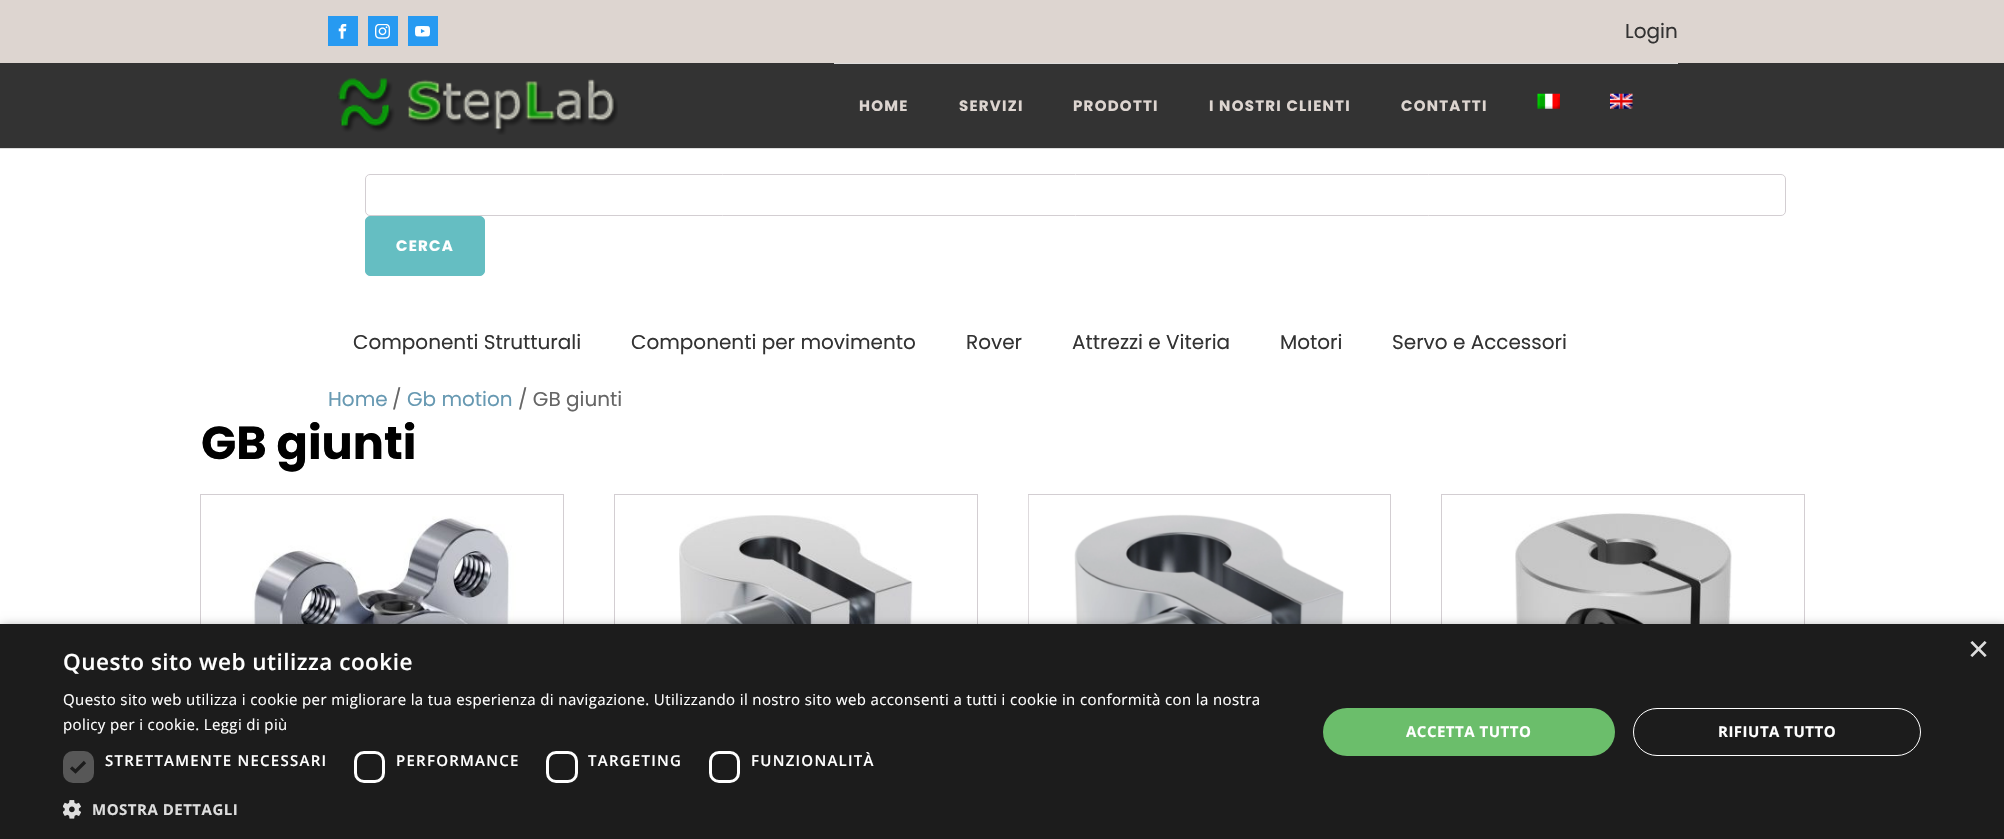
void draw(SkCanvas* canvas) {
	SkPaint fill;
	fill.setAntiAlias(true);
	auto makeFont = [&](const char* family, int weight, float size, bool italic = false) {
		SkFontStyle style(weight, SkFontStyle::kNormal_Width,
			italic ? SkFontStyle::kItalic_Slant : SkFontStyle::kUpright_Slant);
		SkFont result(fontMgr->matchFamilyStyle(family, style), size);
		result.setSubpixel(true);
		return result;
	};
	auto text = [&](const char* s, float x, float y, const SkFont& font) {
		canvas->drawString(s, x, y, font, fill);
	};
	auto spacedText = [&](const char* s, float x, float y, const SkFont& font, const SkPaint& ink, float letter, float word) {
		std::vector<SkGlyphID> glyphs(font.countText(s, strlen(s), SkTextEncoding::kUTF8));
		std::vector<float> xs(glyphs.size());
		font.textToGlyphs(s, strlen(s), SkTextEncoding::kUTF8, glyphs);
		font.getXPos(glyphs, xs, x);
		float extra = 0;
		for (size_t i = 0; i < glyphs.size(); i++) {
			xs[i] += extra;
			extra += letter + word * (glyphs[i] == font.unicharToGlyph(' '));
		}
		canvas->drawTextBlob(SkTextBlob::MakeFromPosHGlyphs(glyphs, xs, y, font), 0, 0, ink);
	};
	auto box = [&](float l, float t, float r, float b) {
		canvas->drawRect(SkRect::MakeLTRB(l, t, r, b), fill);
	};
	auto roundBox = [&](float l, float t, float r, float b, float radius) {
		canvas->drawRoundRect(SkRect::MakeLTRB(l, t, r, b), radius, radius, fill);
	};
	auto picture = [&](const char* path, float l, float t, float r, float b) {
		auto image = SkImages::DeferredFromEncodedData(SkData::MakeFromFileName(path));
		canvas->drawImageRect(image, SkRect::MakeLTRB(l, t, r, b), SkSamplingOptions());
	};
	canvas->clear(0xFFFFFFFF);
	fill.setColor(0xFFDDD5D0);
	box(0, 0, 2004, 63);
	fill.setColor(0xFF279AF1);
	box(328, 16, 358, 46);
	picture("image0.png", 338, 24, 347, 39);
	box(368, 16, 398, 46);
	picture("image1.png", 375, 24, 390, 39);
	box(408, 16, 438, 46);
	picture("image2.png", 415, 26, 430, 37);
	fill.setColor(0xFF333333);
	box(0, 63, 2004, 148);
	fill.setColor(0xFFDDDDDD);
	box(0, 148, 2004, 149);
	picture("image3.png", 337, 78, 618, 135);
	box(834, 63, 1678, 64);
	picture("image4.png", 1537, 93, 1560, 109);
	picture("image5.png", 1610, 93, 1633, 109);
	fill.setStyle(SkPaint::kStroke_Style);
	fill.setStrokeWidth(1);
	fill.setColor(0xFFD3CED2);
	canvas->drawRoundRect(SkRect::MakeLTRB(365.5f, 174.5f, 1785.5f, 215.5f), 4.5f, 4.5f, fill);
	fill.setStyle(SkPaint::kFill_Style);
	fill.setColor(0xFF65BEC2);
	canvas->drawRoundRect(SkRect::MakeLTRB(365.5f, 216.5f, 484.5f, 275.5f), 4.5f, 4.5f, fill);
	fill.setStyle(SkPaint::kStroke_Style);
	canvas->drawRoundRect(SkRect::MakeLTRB(365.5f, 216.5f, 484.5f, 275.5f), 4.5f, 4.5f, fill);
	fill.setColor(0xFFD3CED2);
	canvas->drawRect(SkRect::MakeLTRB(200.5f, 494.5f, 563.5f, 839.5f), fill);
	picture("image6.png", 252, 516, 558, 624);
	canvas->drawRect(SkRect::MakeLTRB(614.5f, 494.5f, 977.5f, 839.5f), fill);
	picture("image7.png", 679, 515, 913, 624);
	canvas->drawRect(SkRect::MakeLTRB(1028.5f, 494.5f, 1390.5f, 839.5f), fill);
	picture("image8.png", 1028, 495, 1344, 624);
	canvas->drawRect(SkRect::MakeLTRB(1441.5f, 494.5f, 1804.5f, 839.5f), fill);
	picture("image9.png", 1515, 512, 1732, 624);
	fill.setStyle(SkPaint::kFill_Style);
	fill.setColor(0x59000000);
	fill.setMaskFilter(SkMaskFilter::MakeBlur(kNormal_SkBlurStyle, 5));
	canvas->drawRect(SkRect::MakeLTRB(1, 626, 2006, 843), fill);
	fill.setMaskFilter(nullptr);
	fill.setColor(0xFF1C1C1C);
	box(0, 624, 2004, 839);
	fill.setColor(0xFF575757);
	roundBox(63, 751, 94, 783, 10);
	fill.setStyle(SkPaint::kStroke_Style);
	fill.setStrokeWidth(3.3f);
	fill.setColor(0xFF1C1C1C);
	canvas->drawPath(SkPathBuilder().moveTo(71, 767.5f).lineTo(75.5f, 771.5f).lineTo(85, 762).detach(), fill);
	fill.setStrokeWidth(3);
	fill.setColor(0xFFFFFFFF);
	canvas->drawRoundRect(SkRect::MakeLTRB(355.5f, 752.5f, 383.5f, 781.5f), 8.5f, 8.5f, fill);
	canvas->drawRoundRect(SkRect::MakeLTRB(547.5f, 752.5f, 576.5f, 781.5f), 8.5f, 8.5f, fill);
	canvas->drawRoundRect(SkRect::MakeLTRB(710.5f, 752.5f, 738.5f, 781.5f), 8.5f, 8.5f, fill);
	picture("image10.png", 63, 800, 81, 819);
	fill.setStyle(SkPaint::kFill_Style);
	fill.setColor(0xFF6BBE6B);
	roundBox(1323, 708, 1615, 756, 24);
	fill.setStyle(SkPaint::kStroke_Style);
	fill.setStrokeWidth(1);
	fill.setColor(0xFFFFFFFF);
	canvas->drawRoundRect(SkRect::MakeLTRB(1633.5f, 708.5f, 1920.5f, 755.5f), 23.5f, 23.5f, fill);
	auto font1 = makeFont("Poppins", 400, 20);
	fill.setStyle(SkPaint::kFill_Style);
	fill.setColor(0xFF333333);
	text("Login", 1625, 38, font1);
	auto font2 = makeFont("Poppins", 700, 15);
	fill.setColor(0xFFDDD5D0);
	spacedText("HOME", 859, 111, font2, fill, 1.25f, 0);
	spacedText("SERVIZI", 959, 111, font2, fill, 1.25f, 0);
	spacedText("PRODOTTI", 1073, 111, font2, fill, 1.25f, 0);
	spacedText("I NOSTRI CLIENTI", 1209, 111, font2, fill, 1.25f, 0);
	spacedText("CONTATTI", 1401, 111, font2, fill, 1.25f, 0);
	fill.setColor(0xFFFFFFFF);
	spacedText("CERCA", 396, 251, font2, fill, 1.25f, 0);
	fill.setColor(0xFF333333);
	text("Componenti Strutturali", 353, 349, font1);
	text("Componenti per movimento", 631, 349, font1);
	text("Rover", 966, 349, font1);
	text("Attrezzi e Viteria", 1072, 349, font1);
	text("Motori", 1280, 349, font1);
	text("Servo e Accessori", 1392, 349, font1);
	fill.setColor(0xFF6799B2);
	text("Home", 328, 406, font1);
	fill.setColor(0xFF666666);
	text("/", 392, 406, font1);
	fill.setColor(0xFF6799B2);
	text("Gb motion", 407, 406, font1);
	fill.setColor(0xFF666666);
	text("/ GB giunti", 518, 406, font1);
	auto font3 = makeFont("Poppins", 700, 46.25f);
	fill.setColor(0xFF000000);
	text("GB giunti", 201, 459, font3);
	auto font4 = makeFont("Liberation Sans", 400, 36);
	fill.setColor(0xFFDDDDDD);
	text("×", 1968, 661, font4);
	auto font5 = makeFont("Open Sans", 600, 22.5f);
	fill.setColor(0xFFFFFFFF);
	spacedText("Questo sito web utilizza cookie", 63, 670, font5, fill, 0.5f, 0);
	auto font6 = makeFont("Open Sans", 400, 15);
	spacedText("Questo sito web utilizza i cookie per migliorare la tua esperienza di navigazione. Utilizzando il nostro sito web acconsenti a tutti i cookie in conformità con la nostra", 63, 705, font6, fill, 0.38f, 0);
	spacedText("policy per i cookie. Leggi di più", 63, 730, font6, fill, 0.38f, 0);
	auto font7 = makeFont("Open Sans", 600, 15);
	spacedText("STRETTAMENTE NECESSARI", 105, 766, font7, fill, 1.25f, 0);
	spacedText("PERFORMANCE", 396, 766, font7, fill, 1.25f, 0);
	spacedText("TARGETING", 588, 766, font7, fill, 1.25f, 0);
	spacedText("FUNZIONALITÀ", 751, 766, font7, fill, 1.25f, 0);
	auto font8 = makeFont("Open Sans", 700, 15);
	fill.setColor(0xFFDDDDDD);
	spacedText("MOSTRA DETTAGLI", 92, 815, font8, fill, 0.5f, 0);
	fill.setColor(0xFFFFFFFF);
	spacedText("ACCETTA TUTTO", 1406, 737, font8, fill, 0.5f, 0);
	spacedText("RIFIUTA TUTTO", 1718, 737, font8, fill, 0.5f, 0);
}
